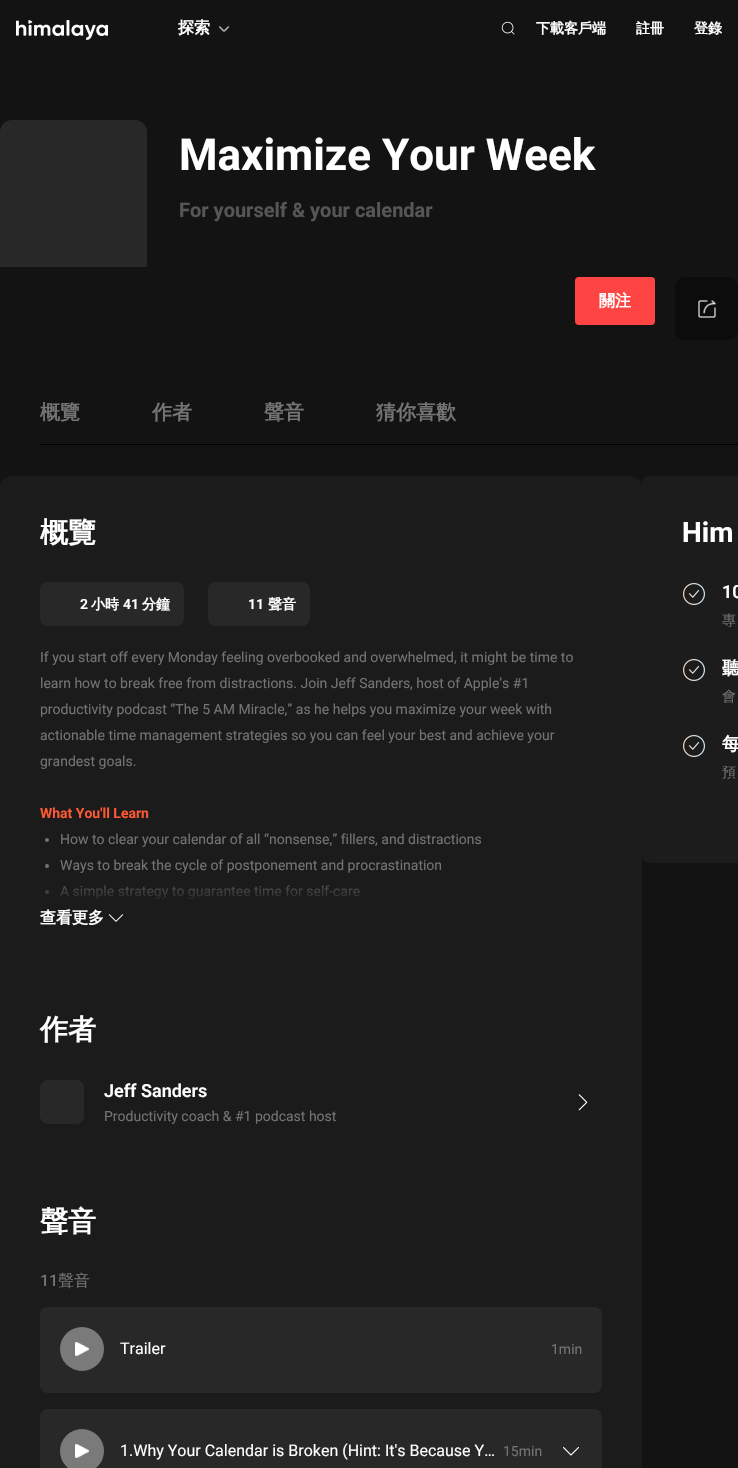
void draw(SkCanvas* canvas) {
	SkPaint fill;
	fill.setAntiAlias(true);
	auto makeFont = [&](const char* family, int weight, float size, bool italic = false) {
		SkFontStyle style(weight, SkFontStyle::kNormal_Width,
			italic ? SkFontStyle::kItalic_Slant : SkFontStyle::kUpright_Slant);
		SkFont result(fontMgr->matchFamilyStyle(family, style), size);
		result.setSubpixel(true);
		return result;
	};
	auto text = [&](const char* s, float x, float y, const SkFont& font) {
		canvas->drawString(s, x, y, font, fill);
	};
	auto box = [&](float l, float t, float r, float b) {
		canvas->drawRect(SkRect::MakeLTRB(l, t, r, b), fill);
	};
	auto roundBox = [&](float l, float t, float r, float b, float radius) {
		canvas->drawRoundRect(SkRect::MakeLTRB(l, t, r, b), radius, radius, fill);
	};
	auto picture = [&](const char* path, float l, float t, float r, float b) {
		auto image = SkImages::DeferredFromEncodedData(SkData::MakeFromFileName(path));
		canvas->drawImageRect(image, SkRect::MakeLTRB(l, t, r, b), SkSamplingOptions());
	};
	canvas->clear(0xFF131313);
	picture("image0.png", 16, 20, 108, 40);
	picture("image1.png", 219, 25, 230, 33);
	picture("image2.png", 501, 21, 515, 35);
	fill.setColor(0xFF282828);
	canvas->drawPath(SkPathBuilder().moveTo(12, 120).lineTo(135, 120).cubicTo(141.5f, 120, 147, 125.5f, 147, 132).lineTo(147, 267).lineTo(0, 267).lineTo(0, 132).cubicTo(0, 125.5f, 5.5f, 120, 12, 120).close().detach(), fill);
	fill.setColor(0xFFFF4444);
	roundBox(575, 277, 655, 325, 4);
	fill.setColor(0xFF0C0C0C);
	roundBox(675, 277, 738, 340, 9);
	picture("image3.png", 698, 300, 716, 318);
	fill.setColor(0xFF000000);
	box(40, 444, 738, 445);
	fill.setColor(0xFF1B1B1B);
	roundBox(0, 476, 642, 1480, 12);
	fill.setColor(0xFF282828);
	roundBox(40, 582, 184, 626, 8);
	roundBox(208, 582, 310, 626, 8);
	fill.setColor(0xFF737373);
	canvas->drawCircle(47, 840, 2, fill);
	canvas->drawCircle(47, 866, 2, fill);
	canvas->drawCircle(47, 892, 2, fill);
	picture("image4.png", 108, 914, 124, 922);
	fill.setColor(0xFF282828);
	roundBox(40, 1080, 84, 1124, 8);
	picture("image5.png", 578, 1094, 588, 1111);
	roundBox(40, 1307, 602, 1393, 8);
	fill.setColor(0xFF7A7A7A);
	canvas->drawCircle(82, 1349, 22, fill);
	picture("image6.png", 75, 1342, 89, 1356);
	fill.setColor(0xFF282828);
	roundBox(40, 1409, 602, 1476, 8);
	fill.setColor(0xFF7A7A7A);
	canvas->drawCircle(82, 1451, 22, fill);
	picture("image6.png", 75, 1444, 89, 1458);
	picture("image7.png", 563, 1446, 579, 1456);
	fill.setColor(0xFF1C1C1C);
	roundBox(642, 476, 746, 863, 8);
	picture("image8.png", 683, 583, 705, 605);
	picture("image8.png", 683, 659, 705, 681);
	picture("image8.png", 683, 735, 705, 757);
	auto font1 = makeFont("WenQuanYi Zen Hei", 700, 16);
	fill.setColor(0xFFFFFFFF);
	text("探索", 178, 33, font1);
	auto font2 = makeFont("WenQuanYi Zen Hei", 700, 14);
	text("下載客戶端", 536, 33, font2);
	text("註冊", 636, 33, font2);
	text("登錄", 694, 33, font2);
	auto font3 = makeFont("Roboto", 700, 44);
	text("Maximize Your Week", 179, 170, font3);
	auto font4 = makeFont("Roboto", 700, 20);
	fill.setColor(0xFF565656);
	text("For yourself & your calendar", 179, 217, font4);
	fill.setColor(0xFFFFFFFF);
	text("關注", 599, 306, font1);
	auto font5 = makeFont("WenQuanYi Zen Hei", 700, 20);
	fill.setColor(0xFF737373);
	text("概覽", 40, 419, font5);
	text("作者", 152, 419, font5);
	text("聲音", 264, 419, font5);
	text("猜你喜歡", 376, 419, font5);
	auto font6 = makeFont("WenQuanYi Zen Hei", 700, 28);
	fill.setColor(0xFFFFFFFF);
	text("概覽", 40, 542, font6);
	auto font7 = makeFont("Roboto", 600, 14);
	text("2", 80, 609, font7);
	text("小時", 91, 609, font2);
	text("41", 123, 609, font7);
	text("分鐘", 142, 609, font2);
	text("11", 248, 609, font7);
	text("聲音", 268, 609, font2);
	auto font8 = makeFont("Roboto", 400, 14);
	fill.setColor(0xFF737373);
	text("If you start off every Monday feeling overbooked and overwhelmed, it might be time to", 40, 662, font8);
	text("learn how to break free from distractions. Join Jeff Sanders, host of Apple’s #1", 40, 688, font8);
	text("productivity podcast “The 5 AM Miracle,” as he helps you maximize your week with", 40, 714, font8);
	text("actionable time management strategies so you can feel your best and achieve your", 40, 740, font8);
	text("grandest goals.", 40, 766, font8);
	auto font9 = makeFont("Roboto", 700, 14);
	fill.setColor(0xFFFC5832);
	text("What You'll Learn", 40, 818, font9);
	fill.setColor(0xFF737373);
	text("How to clear your calendar of all “nonsense,” fillers, and distractions", 60, 844, font8);
	text("Ways to break the cycle of postponement and procrastination", 60, 870, font8);
	text("A simple strategy to guarantee time for self-care", 60, 896, font8);
	{
		const SkColor colors[] = {0x001B1B1B, 0xFF1B1B1B};
		const float stops[] = {0, 1};
		const SkPoint ends[] = {{321, 874}, {321, 904}};
		fill.setShader(SkGradientShader::MakeLinear(ends, colors, stops, 2, SkTileMode::kClamp));
		fill.setAlpha(255);
	}
	box(45, 885, 360, 899);
	fill.setShader(nullptr);
	fill.setColor(0xFFFFFFFF);
	text("查看更多", 40, 923, font1);
	text("作者", 40, 1039, font6);
	auto font10 = makeFont("Roboto", 600, 18);
	text("Jeff Sanders", 104, 1097, font10);
	fill.setColor(0xFF737373);
	text("Productivity coach & #1 podcast host", 104, 1121, font8);
	fill.setColor(0xFFFFFFFF);
	text("聲音", 40, 1231, font6);
	auto font11 = makeFont("Roboto", 500, 16);
	fill.setColor(0xFF737373);
	text("11", 40, 1286, font11);
	auto font12 = makeFont("WenQuanYi Zen Hei", 500, 16);
	text("聲音", 58, 1286, font12);
	auto font13 = makeFont("Roboto", 400, 16);
	fill.setColor(0xFFFFFFFF);
	text("Trailer", 120, 1354, font13);
	fill.setColor(0xFF737373);
	text("1min", 551, 1354, font8);
	fill.setColor(0xFFFFFFFF);
	text("1.Why Your Calendar is Broken (Hint: It's Because Y…", 120, 1456, font13);
	fill.setColor(0xFF737373);
	text("15min", 503, 1456, font8);
	auto font14 = makeFont("Roboto", 700, 28);
	fill.setColor(0xFFFFFFFF);
	text("Him", 682, 542, font14);
	text("10", 722, 598, font10);
	auto font15 = makeFont("WenQuanYi Zen Hei", 500, 14);
	fill.setColor(0xFF737373);
	text("專", 722, 625, font15);
	auto font16 = makeFont("WenQuanYi Zen Hei", 700, 18);
	fill.setColor(0xFFFFFFFF);
	text("聽", 722, 674, font16);
	fill.setColor(0xFF737373);
	text("會", 722, 701, font15);
	fill.setColor(0xFFFFFFFF);
	text("每", 722, 750, font16);
	fill.setColor(0xFF737373);
	text("預", 722, 777, font15);
}
